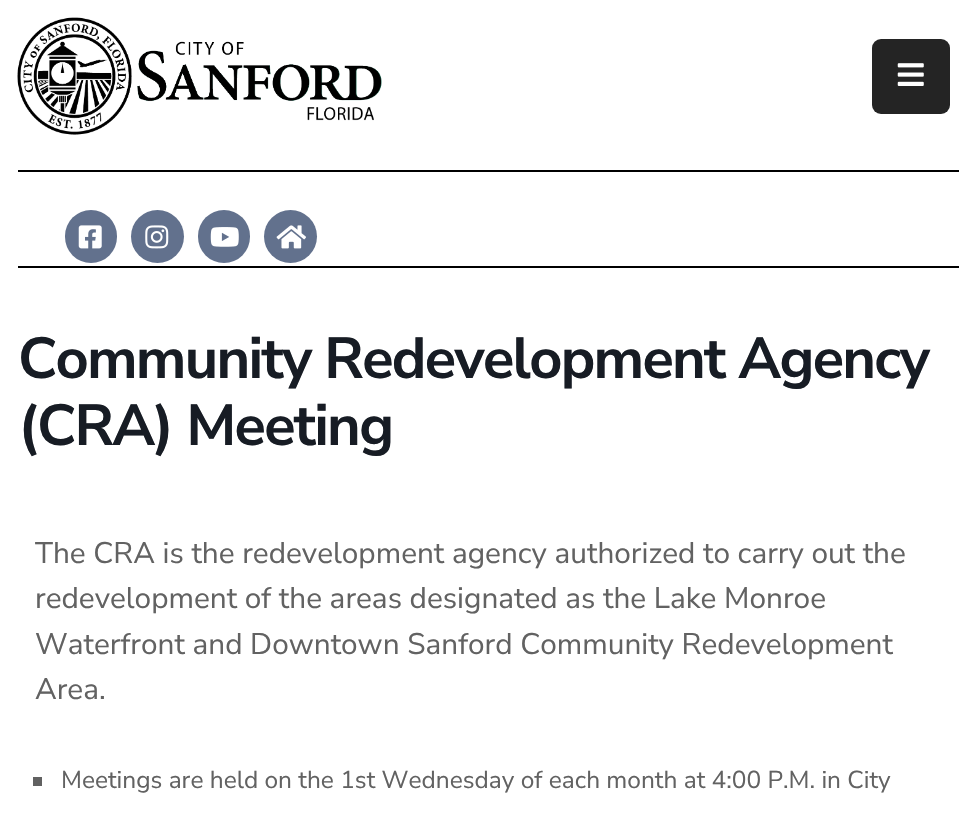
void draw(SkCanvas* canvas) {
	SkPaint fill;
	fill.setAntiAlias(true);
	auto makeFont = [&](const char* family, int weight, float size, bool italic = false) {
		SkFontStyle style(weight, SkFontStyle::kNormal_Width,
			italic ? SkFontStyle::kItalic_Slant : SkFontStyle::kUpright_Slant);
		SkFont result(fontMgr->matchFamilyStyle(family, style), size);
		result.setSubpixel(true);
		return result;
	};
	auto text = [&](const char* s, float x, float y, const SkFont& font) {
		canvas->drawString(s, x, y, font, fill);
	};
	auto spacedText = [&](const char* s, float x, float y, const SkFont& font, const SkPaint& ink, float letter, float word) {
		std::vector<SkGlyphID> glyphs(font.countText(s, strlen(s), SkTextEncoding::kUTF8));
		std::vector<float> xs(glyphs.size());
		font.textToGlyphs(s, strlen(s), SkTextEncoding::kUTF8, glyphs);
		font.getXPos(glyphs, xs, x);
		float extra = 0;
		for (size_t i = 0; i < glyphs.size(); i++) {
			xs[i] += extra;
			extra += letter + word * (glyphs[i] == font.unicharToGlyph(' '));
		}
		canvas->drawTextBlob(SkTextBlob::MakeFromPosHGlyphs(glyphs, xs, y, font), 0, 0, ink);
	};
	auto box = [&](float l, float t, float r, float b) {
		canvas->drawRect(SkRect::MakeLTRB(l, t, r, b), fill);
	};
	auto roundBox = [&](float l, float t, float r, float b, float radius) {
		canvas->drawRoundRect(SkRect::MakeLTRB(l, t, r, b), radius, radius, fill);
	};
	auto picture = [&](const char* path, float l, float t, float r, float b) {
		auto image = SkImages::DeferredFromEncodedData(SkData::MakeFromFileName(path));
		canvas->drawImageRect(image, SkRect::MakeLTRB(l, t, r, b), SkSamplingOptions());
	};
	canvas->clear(0xFFFFFFFF);
	picture("image0.png", 17, 17, 382, 135);
	fill.setColor(0xFF242424);
	roundBox(872, 39, 950, 114, 9);
	picture("image1.png", 897, 63, 924, 86);
	fill.setColor(0xFF000000);
	box(18, 170, 959, 172);
	fill.setColor(0xFF62718D);
	roundBox(65, 210, 117, 263, 26);
	picture("image2.png", 78, 225, 102, 249);
	canvas->drawCircle(157.5f, 236.5f, 26.5f, fill);
	picture("image3.png", 145, 225, 169, 249);
	roundBox(198, 210, 250, 263, 26);
	picture("image4.png", 210, 227, 239, 247);
	canvas->drawCircle(290.5f, 236.5f, 26.5f, fill);
	picture("image5.png", 276, 225, 306, 249);
	fill.setColor(0xFF000000);
	box(18, 266, 959, 268);
	fill.setColor(0xFF616161);
	box(33, 777, 42, 786);
	auto font1 = makeFont("Nunito Sans", 700, 57.75f);
	fill.setColor(0xFF171C24);
	spacedText("Community Redevelopment Agency", 18, 378, font1, fill, -1.75f, 0);
	spacedText("(CRA) Meeting", 18, 445, font1, fill, -1.75f, 0);
	auto font2 = makeFont("Nunito Sans", 400, 29.75f);
	fill.setColor(0xFF626262);
	text("The CRA is the redevelopment agency authorized to carry out the", 35, 563, font2);
	text("redevelopment of the areas designated as the Lake Monroe", 35, 608, font2);
	text("Waterfront and Downtown Sanford Community Redevelopment", 35, 654, font2);
	text("Area.", 35, 699, font2);
	auto font3 = makeFont("Nunito Sans", 400, 24.5f);
	text("Meetings are held on the 1st Wednesday of each month at 4:00 P.M. in City", 61, 788, font3);
}
